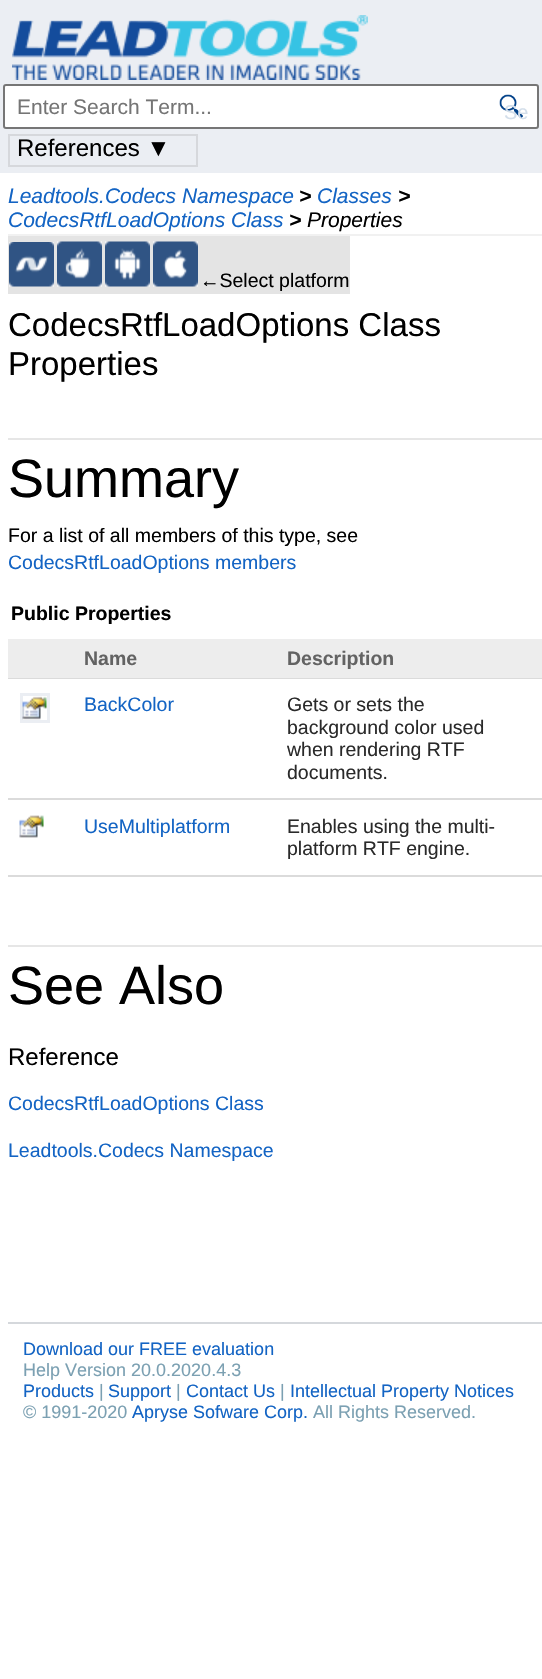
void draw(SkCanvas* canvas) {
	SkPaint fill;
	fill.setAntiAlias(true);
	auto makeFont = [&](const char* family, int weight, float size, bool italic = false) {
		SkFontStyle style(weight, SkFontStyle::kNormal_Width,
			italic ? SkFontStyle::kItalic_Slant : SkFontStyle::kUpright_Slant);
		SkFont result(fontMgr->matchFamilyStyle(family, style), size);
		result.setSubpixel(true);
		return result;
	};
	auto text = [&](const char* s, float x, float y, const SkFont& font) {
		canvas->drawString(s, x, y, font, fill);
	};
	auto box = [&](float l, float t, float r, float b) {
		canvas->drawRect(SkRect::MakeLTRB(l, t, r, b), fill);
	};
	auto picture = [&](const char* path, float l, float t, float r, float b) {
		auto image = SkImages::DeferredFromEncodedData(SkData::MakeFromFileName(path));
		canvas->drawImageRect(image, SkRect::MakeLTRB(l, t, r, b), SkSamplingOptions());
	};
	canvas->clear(0xFFFFFFFF);
	fill.setColor(0xFFEBEEF3);
	box(0, 0, 542, 173);
	picture("image0.png", 12, 15, 368, 80);
	fill.setColor(0xFFFFFFFF);
	canvas->drawRoundRect(SkRect::MakeLTRB(4, 85, 538, 128), 2, 2, fill);
	fill.setStyle(SkPaint::kStroke_Style);
	fill.setStrokeWidth(2);
	fill.setColor(0xFF767676);
	canvas->drawRoundRect(SkRect::MakeLTRB(4, 85, 538, 128), 2, 2, fill);
	picture("image1.png", 499, 94, 523, 118);
	fill.setColor(0xFFD6D8DC);
	canvas->drawRect(SkRect::MakeLTRB(9, 135, 197, 166), fill);
	fill.setStyle(SkPaint::kFill_Style);
	fill.setColor(0xFFF1F1F1);
	box(8, 234, 542, 236);
	fill.setColor(0xFFE4E4E4);
	box(8, 236, 350, 294);
	picture("image2.png", 9, 242, 54, 287);
	picture("image3.png", 57, 241, 102, 287);
	picture("image4.png", 105, 241, 150, 287);
	picture("image5.png", 153, 241, 198, 287);
	fill.setColor(0xFFE6E6E6);
	box(8, 438, 542, 440);
	fill.setColor(0xFFEDEDED);
	box(8, 639, 542, 678);
	fill.setColor(0xFFDBDBDB);
	box(8, 678, 542, 679);
	fill.setStyle(SkPaint::kStroke_Style);
	fill.setStrokeWidth(3);
	fill.setColor(0xFFEBEEF3);
	canvas->drawRect(SkRect::MakeLTRB(21.5f, 694.5f, 48.5f, 721.5f), fill);
	picture("image6.png", 22, 696, 47, 720);
	fill.setStyle(SkPaint::kFill_Style);
	fill.setColor(0xFFDBDBDB);
	box(8, 798, 542, 800);
	picture("image7.png", 19, 815, 44, 838);
	box(8, 875, 542, 877);
	fill.setColor(0xFFE6E6E6);
	box(8, 945, 542, 947);
	fill.setColor(0xFFD5D8DC);
	box(8, 1322, 542, 1324);
	auto font1 = makeFont("Liberation Sans", 400, 21);
	fill.setColor(0xFF757575);
	text("Enter Search Term...", 17, 114, font1);
	auto font2 = makeFont("Liberation Sans", 400, 20);
	fill.setColor(0xFFD3DEEA);
	text("Se", 504, 119, font2);
	auto font3 = makeFont("Liberation Sans", 400, 24);
	fill.setColor(0xFF000000);
	text("References ▼", 17, 156, font3);
	auto font4 = makeFont("Liberation Sans", 400, 21, true);
	fill.setColor(0xFF1364C4);
	text("Leadtools.Codecs Namespace", 8, 203, font4);
	auto font5 = makeFont("Liberation Sans", 700, 21, true);
	fill.setColor(0xFF000000);
	text(">", 299, 203, font5);
	fill.setColor(0xFF1364C4);
	text("Classes", 317, 203, font4);
	fill.setColor(0xFF000000);
	text(">", 398, 203, font5);
	fill.setColor(0xFF1364C4);
	text("CodecsRtfLoadOptions Class", 8, 227, font4);
	fill.setColor(0xFF000000);
	text(">", 289, 227, font5);
	text("Properties", 307, 227, font4);
	auto font6 = makeFont("Liberation Sans", 400, 19.5f);
	text("←Select platform", 200, 287, font6);
	auto font7 = makeFont("Liberation Sans", 400, 33);
	text("CodecsRtfLoadOptions Class", 8, 336, font7);
	text("Properties", 8, 375, font7);
	auto font8 = makeFont("Liberation Sans", 400, 54);
	text("Summary", 8, 497, font8);
	text("For a list of all members of this type, see", 8, 542, font6);
	fill.setColor(0xFF1364C4);
	text("CodecsRtfLoadOptions members", 8, 569, font6);
	auto font9 = makeFont("Liberation Sans", 700, 19.5f);
	fill.setColor(0xFF000000);
	text("Public Properties", 11, 620, font9);
	fill.setColor(0xFF636363);
	text("Name", 84, 665, font9);
	text("Description", 287, 665, font9);
	fill.setColor(0xFF1364C4);
	text("BackColor", 84, 711, font6);
	fill.setColor(0xFF2A2A2A);
	text("Gets or sets the", 287, 711, font6);
	text("background color used", 287, 734, font6);
	text("when rendering RTF", 287, 756, font6);
	text("documents.", 287, 779, font6);
	fill.setColor(0xFF1364C4);
	text("UseMultiplatform", 84, 833, font6);
	fill.setColor(0xFF2A2A2A);
	text("Enables using the multi-", 287, 833, font6);
	text("platform RTF engine.", 287, 855, font6);
	fill.setColor(0xFF000000);
	text("See Also", 8, 1004, font8);
	text("Reference", 8, 1065, font3);
	fill.setColor(0xFF1364C4);
	text("CodecsRtfLoadOptions Class", 8, 1110, font6);
	text("Leadtools.Codecs Namespace", 8, 1157, font6);
	auto font10 = makeFont("Liberation Sans", 400, 18);
	text("Download our FREE evaluation", 23, 1355, font10);
	fill.setColor(0xFF7BA0B2);
	text("Help Version 20.0.2020.4.3", 23, 1376, font10);
	fill.setColor(0xFF1364C4);
	text("Products", 23, 1397, font10);
	fill.setColor(0xFF7BA0B2);
	text("|", 99, 1397, font10);
	fill.setColor(0xFF1364C4);
	text("Support", 108, 1397, font10);
	fill.setColor(0xFF7BA0B2);
	text("|", 176, 1397, font10);
	fill.setColor(0xFF1364C4);
	text("Contact Us", 186, 1397, font10);
	fill.setColor(0xFF7BA0B2);
	text("|", 280, 1397, font10);
	fill.setColor(0xFF1364C4);
	text("Intellectual Property Notices", 290, 1397, font10);
	fill.setColor(0xFF7BA0B2);
	text("© 1991-2020", 23, 1418, font10);
	fill.setColor(0xFF1364C4);
	text("Apryse Sofware Corp.", 132, 1418, font10);
	fill.setColor(0xFF7BA0B2);
	text("All Rights Reserved.", 313, 1418, font10);
}
